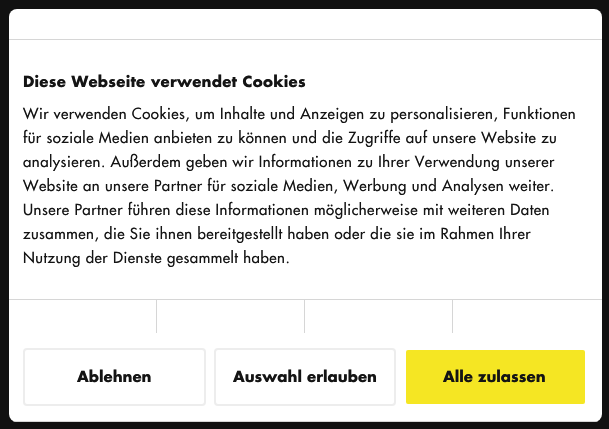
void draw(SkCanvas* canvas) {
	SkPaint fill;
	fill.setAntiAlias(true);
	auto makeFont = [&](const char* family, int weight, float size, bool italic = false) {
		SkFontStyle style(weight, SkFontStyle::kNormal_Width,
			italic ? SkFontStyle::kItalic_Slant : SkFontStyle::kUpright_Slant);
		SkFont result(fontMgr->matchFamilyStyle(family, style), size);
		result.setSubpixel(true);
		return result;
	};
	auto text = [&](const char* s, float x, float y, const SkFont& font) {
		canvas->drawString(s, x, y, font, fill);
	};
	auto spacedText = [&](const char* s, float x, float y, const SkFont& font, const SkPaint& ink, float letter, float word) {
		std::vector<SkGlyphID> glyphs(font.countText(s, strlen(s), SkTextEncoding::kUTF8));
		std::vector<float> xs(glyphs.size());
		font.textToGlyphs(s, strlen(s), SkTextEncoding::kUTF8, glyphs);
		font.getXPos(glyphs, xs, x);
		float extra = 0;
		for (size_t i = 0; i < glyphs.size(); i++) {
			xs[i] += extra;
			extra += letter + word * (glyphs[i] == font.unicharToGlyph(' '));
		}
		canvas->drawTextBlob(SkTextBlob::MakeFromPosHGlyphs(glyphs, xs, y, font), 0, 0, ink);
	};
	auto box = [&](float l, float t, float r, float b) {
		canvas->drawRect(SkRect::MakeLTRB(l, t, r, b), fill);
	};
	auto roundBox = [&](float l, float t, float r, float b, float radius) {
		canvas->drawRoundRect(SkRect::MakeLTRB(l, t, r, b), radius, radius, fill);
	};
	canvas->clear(0xFF111111);
	fill.setColor(0xFFFFFFFF);
	roundBox(9, 9, 602, 422, 8);
	fill.setColor(0xFFD6D6D6);
	box(9, 39, 602, 40);
	box(9, 299, 602, 300);
	box(156, 300, 157, 333);
	box(304, 300, 305, 333);
	box(452, 300, 453, 333);
	canvas->save();
	canvas->clipPath(SkPathBuilder().moveTo(17, 9).lineTo(594, 9).cubicTo(598.5f, 9, 602, 12.5f, 602, 17).lineTo(602, 414).cubicTo(602, 418.5f, 598.5f, 422, 594, 422).lineTo(17, 422).cubicTo(12.5f, 422, 9, 418.5f, 9, 414).lineTo(9, 17).cubicTo(9, 12.5f, 12.5f, 9, 17, 9).close().detach(), true);
	box(9, 421, 602, 422);
	canvas->restore();
	fill.setStyle(SkPaint::kStroke_Style);
	fill.setStrokeWidth(2);
	fill.setColor(0xFFEDEDED);
	canvas->drawRoundRect(SkRect::MakeLTRB(24, 349, 205, 405), 3, 3, fill);
	canvas->drawRoundRect(SkRect::MakeLTRB(215, 349, 395, 405), 3, 3, fill);
	fill.setStyle(SkPaint::kFill_Style);
	fill.setColor(0xFFF5E623);
	canvas->drawRoundRect(SkRect::MakeLTRB(405, 349, 586, 405), 3, 3, fill);
	fill.setStyle(SkPaint::kStroke_Style);
	fill.setColor(0xFFFFFFFF);
	canvas->drawRoundRect(SkRect::MakeLTRB(405, 349, 586, 405), 3, 3, fill);
	auto font1 = makeFont("Futura", 700, 15);
	fill.setStyle(SkPaint::kFill_Style);
	fill.setColor(0xFF141414);
	spacedText("Diese Webseite verwendet Cookies", 23, 87, font1, fill, 0.25f, 0);
	auto font2 = makeFont("Futura", 500, 15);
	spacedText("Wir verwenden Cookies, um Inhalte und Anzeigen zu personalisieren, Funktionen", 23, 119, font2, fill, 0.5f, 0);
	spacedText("für soziale Medien anbieten zu können und die Zugriffe auf unsere Website zu", 23, 143, font2, fill, 0.5f, 0);
	spacedText("analysieren. Außerdem geben wir Informationen zu Ihrer Verwendung unserer", 23, 167, font2, fill, 0.5f, 0);
	spacedText("Website an unsere Partner für soziale Medien, Werbung und Analysen weiter.", 23, 191, font2, fill, 0.5f, 0);
	spacedText("Unsere Partner führen diese Informationen möglicherweise mit weiteren Daten", 23, 215, font2, fill, 0.5f, 0);
	spacedText("zusammen, die Sie ihnen bereitgestellt haben oder die sie im Rahmen Ihrer", 23, 239, font2, fill, 0.5f, 0);
	spacedText("Nutzung der Dienste gesammelt haben.", 23, 263, font2, fill, 0.5f, 0);
	text("Ablehnen", 77, 382, font1);
	text("Auswahl erlauben", 233, 382, font1);
	text("Alle zulassen", 443, 382, font1);
}
